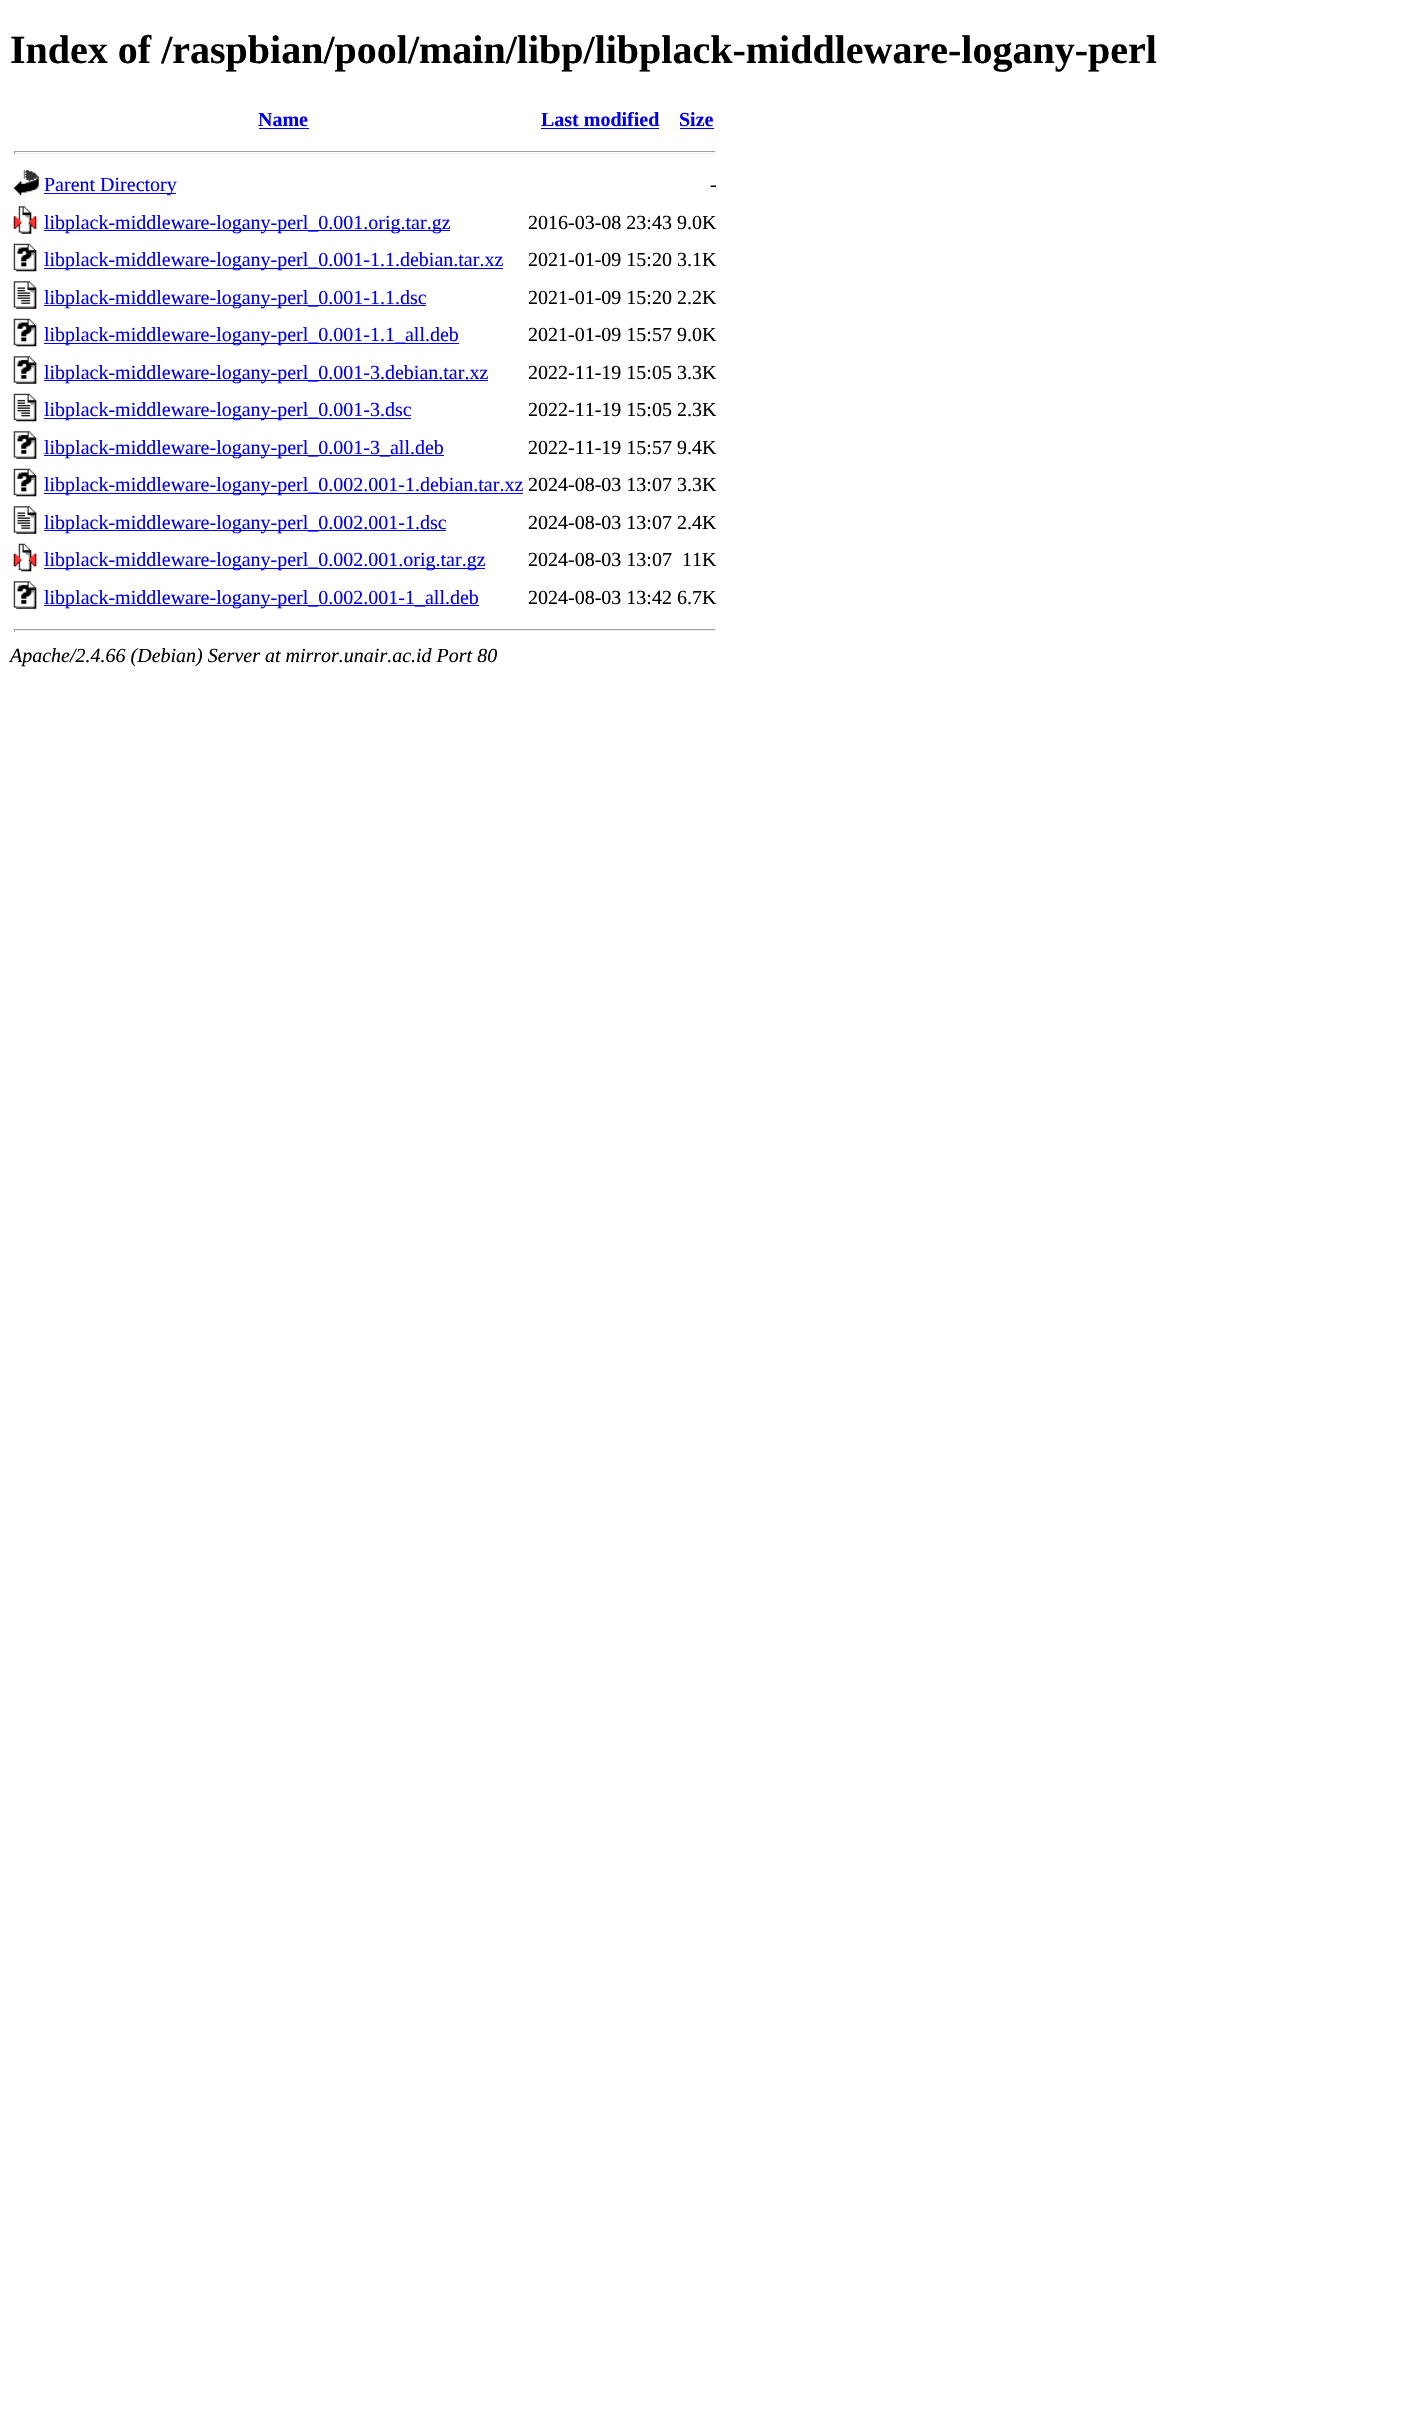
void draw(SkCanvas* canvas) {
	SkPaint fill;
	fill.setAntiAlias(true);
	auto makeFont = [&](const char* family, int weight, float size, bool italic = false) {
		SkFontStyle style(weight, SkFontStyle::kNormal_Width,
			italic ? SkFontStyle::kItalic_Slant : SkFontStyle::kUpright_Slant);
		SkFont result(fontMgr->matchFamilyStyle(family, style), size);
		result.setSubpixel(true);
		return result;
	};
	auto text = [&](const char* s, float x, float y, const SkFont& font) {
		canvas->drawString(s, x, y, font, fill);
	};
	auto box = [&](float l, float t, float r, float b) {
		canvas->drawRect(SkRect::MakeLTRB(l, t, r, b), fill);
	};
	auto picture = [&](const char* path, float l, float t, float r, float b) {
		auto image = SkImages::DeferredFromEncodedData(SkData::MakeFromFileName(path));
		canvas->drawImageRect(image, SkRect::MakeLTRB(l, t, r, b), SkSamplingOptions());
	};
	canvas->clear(0xFFFFFFFF);
	fill.setColor(0xFF0000EE);
	box(259, 128, 309, 129);
	box(541, 128, 659, 129);
	box(680, 128, 714, 129);
	fill.setColor(0xFF9F9F9F);
	box(14, 151, 716, 152);
	fill.setColor(0xFFEEEEEE);
	box(715, 151, 716, 154);
	box(14, 153, 716, 154);
	fill.setColor(0xFF9F9F9F);
	box(14, 151, 15, 154);
	picture("image0.png", 13, 169, 39, 196);
	fill.setColor(0xFF0000EE);
	box(44, 193, 176, 194);
	picture("image1.png", 13, 206, 37, 234);
	box(44, 230, 450, 231);
	picture("image2.png", 13, 243, 37, 272);
	box(44, 268, 503, 269);
	picture("image3.png", 13, 281, 37, 309);
	box(44, 305, 426, 306);
	picture("image2.png", 13, 318, 37, 347);
	box(44, 343, 459, 344);
	picture("image4.png", 13, 356, 37, 384);
	box(44, 380, 488, 381);
	picture("image5.png", 13, 393, 37, 422);
	box(44, 418, 411, 419);
	picture("image4.png", 13, 431, 37, 459);
	box(44, 455, 444, 456);
	picture("image2.png", 13, 468, 37, 497);
	box(44, 493, 523, 494);
	picture("image6.png", 13, 506, 37, 534);
	box(44, 530, 446, 531);
	picture("image7.png", 13, 543, 37, 572);
	box(44, 568, 485, 569);
	picture("image8.png", 13, 581, 37, 609);
	box(44, 605, 479, 606);
	fill.setColor(0xFF9F9F9F);
	box(14, 629, 716, 630);
	fill.setColor(0xFFEEEEEE);
	box(715, 629, 716, 632);
	box(14, 630, 716, 631);
	fill.setColor(0xFF9F9F9F);
	box(14, 629, 15, 632);
	auto font1 = makeFont("Liberation Serif", 700, 40);
	fill.setColor(0xFF000000);
	text("Index of /raspbian/pool/main/libp/libplack-middleware-logany-perl", 10, 63, font1);
	auto font2 = makeFont("Liberation Serif", 700, 20);
	fill.setColor(0xFF0000EE);
	text("Name", 258, 126, font2);
	text("Last modified", 541, 126, font2);
	text("Size", 679, 126, font2);
	auto font3 = makeFont("Liberation Serif", 400, 20);
	text("Parent Directory", 44, 191, font3);
	fill.setColor(0xFF000000);
	text("-", 710, 191, font3);
	fill.setColor(0xFF0000EE);
	text("libplack-middleware-logany-perl_0.001.orig.tar.gz", 44, 229, font3);
	fill.setColor(0xFF000000);
	text("2016-03-08 23:43 9.0K", 528, 229, font3);
	fill.setColor(0xFF0000EE);
	text("libplack-middleware-logany-perl_0.001-1.1.debian.tar.xz", 44, 266, font3);
	fill.setColor(0xFF000000);
	text("2021-01-09 15:20 3.1K", 528, 266, font3);
	fill.setColor(0xFF0000EE);
	text("libplack-middleware-logany-perl_0.001-1.1.dsc", 44, 304, font3);
	fill.setColor(0xFF000000);
	text("2021-01-09 15:20 2.2K", 528, 304, font3);
	fill.setColor(0xFF0000EE);
	text("libplack-middleware-logany-perl_0.001-1.1_all.deb", 44, 341, font3);
	fill.setColor(0xFF000000);
	text("2021-01-09 15:57 9.0K", 528, 341, font3);
	fill.setColor(0xFF0000EE);
	text("libplack-middleware-logany-perl_0.001-3.debian.tar.xz", 44, 379, font3);
	fill.setColor(0xFF000000);
	text("2022-11-19 15:05 3.3K", 528, 379, font3);
	fill.setColor(0xFF0000EE);
	text("libplack-middleware-logany-perl_0.001-3.dsc", 44, 416, font3);
	fill.setColor(0xFF000000);
	text("2022-11-19 15:05 2.3K", 528, 416, font3);
	fill.setColor(0xFF0000EE);
	text("libplack-middleware-logany-perl_0.001-3_all.deb", 44, 454, font3);
	fill.setColor(0xFF000000);
	text("2022-11-19 15:57 9.4K", 528, 454, font3);
	fill.setColor(0xFF0000EE);
	text("libplack-middleware-logany-perl_0.002.001-1.debian.tar.xz", 44, 491, font3);
	fill.setColor(0xFF000000);
	text("2024-08-03 13:07 3.3K", 528, 491, font3);
	fill.setColor(0xFF0000EE);
	text("libplack-middleware-logany-perl_0.002.001-1.dsc", 44, 529, font3);
	fill.setColor(0xFF000000);
	text("2024-08-03 13:07 2.4K", 528, 529, font3);
	fill.setColor(0xFF0000EE);
	text("libplack-middleware-logany-perl_0.002.001.orig.tar.gz", 44, 566, font3);
	fill.setColor(0xFF000000);
	text("2024-08-03 13:07", 528, 566, font3);
	text("11K", 682, 566, font3);
	fill.setColor(0xFF0000EE);
	text("libplack-middleware-logany-perl_0.002.001-1_all.deb", 44, 604, font3);
	fill.setColor(0xFF000000);
	text("2024-08-03 13:42 6.7K", 528, 604, font3);
	auto font4 = makeFont("Liberation Serif", 400, 20, true);
	text("Apache/2.4.66 (Debian) Server at mirror.unair.ac.id Port 80", 10, 662, font4);
}
